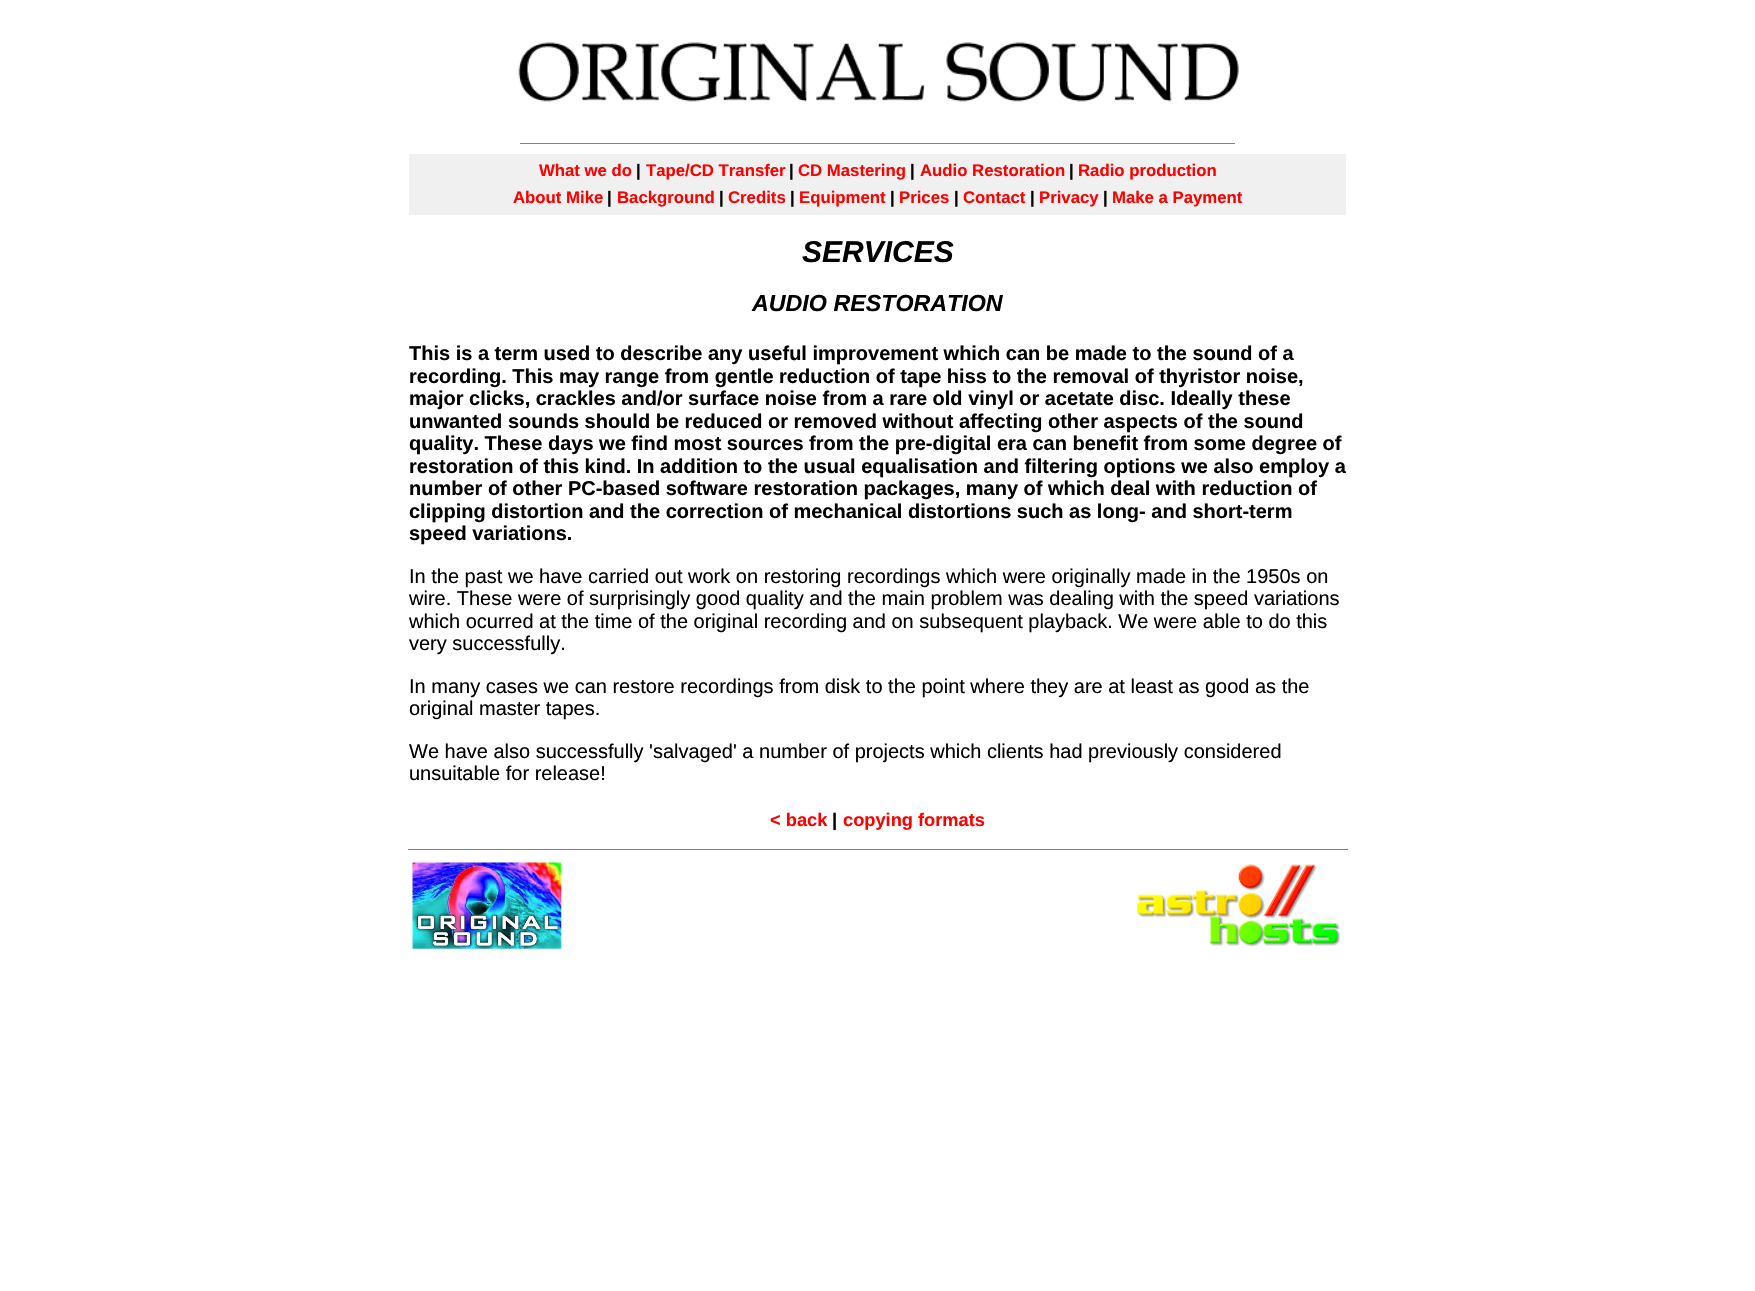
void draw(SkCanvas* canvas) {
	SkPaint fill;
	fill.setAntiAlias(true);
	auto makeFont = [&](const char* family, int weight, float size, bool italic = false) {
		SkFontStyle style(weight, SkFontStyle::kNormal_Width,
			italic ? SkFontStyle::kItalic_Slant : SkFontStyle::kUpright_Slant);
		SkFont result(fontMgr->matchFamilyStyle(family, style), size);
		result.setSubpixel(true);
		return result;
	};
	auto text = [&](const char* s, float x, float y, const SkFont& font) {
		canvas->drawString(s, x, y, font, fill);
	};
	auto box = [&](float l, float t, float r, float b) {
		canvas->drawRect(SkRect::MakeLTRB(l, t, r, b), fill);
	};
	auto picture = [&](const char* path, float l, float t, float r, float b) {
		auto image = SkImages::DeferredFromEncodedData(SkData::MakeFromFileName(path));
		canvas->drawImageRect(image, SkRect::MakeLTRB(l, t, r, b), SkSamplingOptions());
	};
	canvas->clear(0xFFFFFFFF);
	picture("image0.png", 518, 42, 1239, 102);
	fill.setColor(0xFF808080);
	box(520, 143, 1235, 144);
	fill.setColor(0xFFF0F0F0);
	box(409, 154, 1346, 215);
	fill.setColor(0xFF808080);
	box(408, 849, 1348, 850);
	picture("image1.png", 412, 862, 562, 949);
	picture("image2.png", 1137, 864, 1341, 947);
	auto font1 = makeFont("Liberation Sans", 700, 16.75f);
	fill.setColor(0xFFFF0000);
	text("What we do", 539, 176, font1);
	fill.setColor(0xFF000000);
	text("|", 636, 176, font1);
	fill.setColor(0xFFFF0000);
	text("Tape/CD Transfer", 646, 176, font1);
	fill.setColor(0xFF000000);
	text("|", 789, 176, font1);
	fill.setColor(0xFFFF0000);
	text("CD Mastering", 798, 176, font1);
	fill.setColor(0xFF000000);
	text("|", 910, 176, font1);
	fill.setColor(0xFFFF0000);
	text("Audio Restoration", 920, 176, font1);
	fill.setColor(0xFF000000);
	text("|", 1069, 176, font1);
	fill.setColor(0xFFFF0000);
	text("Radio production", 1078, 176, font1);
	text("About Mike", 513, 203, font1);
	fill.setColor(0xFF000000);
	text("|", 607, 203, font1);
	fill.setColor(0xFFFF0000);
	text("Background", 617, 203, font1);
	fill.setColor(0xFF000000);
	text("|", 719, 203, font1);
	fill.setColor(0xFFFF0000);
	text("Credits", 728, 203, font1);
	fill.setColor(0xFF000000);
	text("|", 790, 203, font1);
	fill.setColor(0xFFFF0000);
	text("Equipment", 799, 203, font1);
	fill.setColor(0xFF000000);
	text("|", 890, 203, font1);
	fill.setColor(0xFFFF0000);
	text("Prices", 899, 203, font1);
	fill.setColor(0xFF000000);
	text("|", 954, 203, font1);
	fill.setColor(0xFFFF0000);
	text("Contact", 963, 203, font1);
	fill.setColor(0xFF000000);
	text("|", 1030, 203, font1);
	fill.setColor(0xFFFF0000);
	text("Privacy", 1039, 203, font1);
	fill.setColor(0xFF000000);
	text("|", 1103, 203, font1);
	fill.setColor(0xFFFF0000);
	text("Make a Payment", 1112, 203, font1);
	auto font2 = makeFont("Liberation Sans", 700, 30, true);
	fill.setColor(0xFF000000);
	text("SERVICES", 802, 262, font2);
	auto font3 = makeFont("Liberation Sans", 700, 23.25f, true);
	text("AUDIO RESTORATION", 752, 311, font3);
	auto font4 = makeFont("Liberation Sans", 700, 20);
	text("This is a term used to describe any useful improvement which can be made to the sound of a", 409, 360, font4);
	text("recording. This may range from gentle reduction of tape hiss to the removal of thyristor noise,", 409, 383, font4);
	text("major clicks, crackles and/or surface noise from a rare old vinyl or acetate disc. Ideally these", 409, 405, font4);
	text("unwanted sounds should be reduced or removed without affecting other aspects of the sound", 409, 428, font4);
	text("quality. These days we find most sources from the pre-digital era can benefit from some degree of", 409, 450, font4);
	text("restoration of this kind. In addition to the usual equalisation and filtering options we also employ a", 409, 473, font4);
	text("number of other PC-based software restoration packages, many of which deal with reduction of", 409, 495, font4);
	text("clipping distortion and the correction of mechanical distortions such as long- and short-term", 409, 518, font4);
	text("speed variations.", 409, 540, font4);
	auto font5 = makeFont("Liberation Sans", 400, 20);
	text("In the past we have carried out work on restoring recordings which were originally made in the 1950s on", 409, 583, font5);
	text("wire. These were of surprisingly good quality and the main problem was dealing with the speed variations", 409, 605, font5);
	text("which ocurred at the time of the original recording and on subsequent playback. We were able to do this", 409, 628, font5);
	text("very successfully.", 409, 650, font5);
	text("In many cases we can restore recordings from disk to the point where they are at least as good as the", 409, 693, font5);
	text("original master tapes.", 409, 715, font5);
	text("We have also successfully 'salvaged' a number of projects which clients had previously considered", 409, 758, font5);
	text("unsuitable for release!", 409, 780, font5);
	auto font6 = makeFont("Liberation Sans", 700, 18.25f);
	fill.setColor(0xFFFF0000);
	text("< back", 770, 826, font6);
	fill.setColor(0xFF000000);
	text("|", 832, 826, font6);
	fill.setColor(0xFFFF0000);
	text("copying formats", 843, 826, font6);
}
